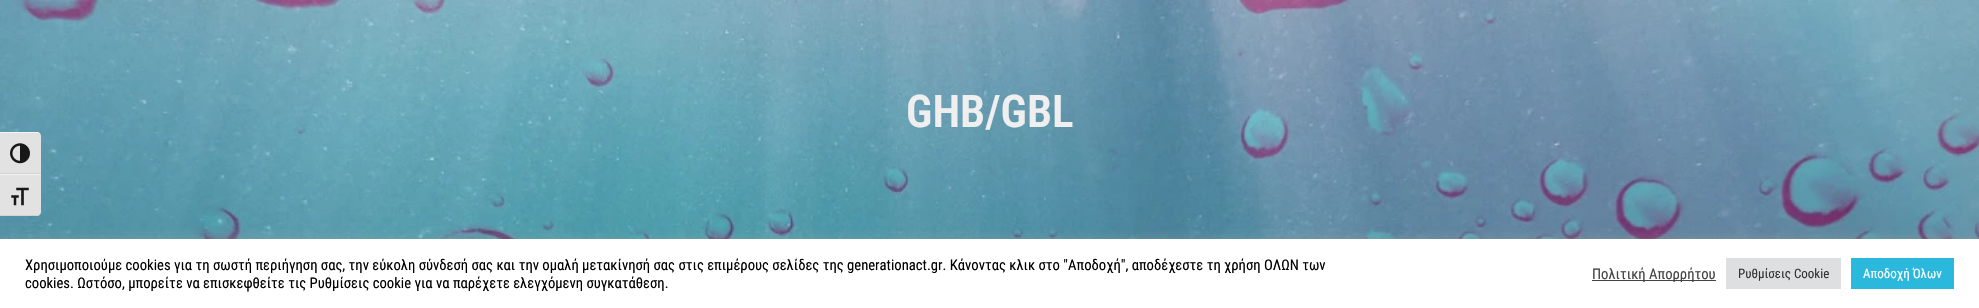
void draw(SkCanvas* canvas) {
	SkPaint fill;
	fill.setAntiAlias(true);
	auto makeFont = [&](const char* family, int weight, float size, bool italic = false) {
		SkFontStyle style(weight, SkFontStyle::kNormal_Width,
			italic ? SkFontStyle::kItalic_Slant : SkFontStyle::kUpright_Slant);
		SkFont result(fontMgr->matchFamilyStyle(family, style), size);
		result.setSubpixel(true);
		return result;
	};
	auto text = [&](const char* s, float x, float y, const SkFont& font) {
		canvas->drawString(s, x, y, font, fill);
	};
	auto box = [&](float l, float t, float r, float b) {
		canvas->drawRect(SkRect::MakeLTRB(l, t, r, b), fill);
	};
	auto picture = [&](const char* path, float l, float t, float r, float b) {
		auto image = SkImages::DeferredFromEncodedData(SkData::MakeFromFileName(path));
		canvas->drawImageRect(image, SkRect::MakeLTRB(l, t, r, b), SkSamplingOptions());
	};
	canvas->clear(0xFFFFFFFF);
	picture("image0.png", 0, 0, 1979, 239);
	fill.setColor(0xFFE2E2E2);
	canvas->drawPath(SkPathBuilder().moveTo(0, 132).lineTo(37, 132).cubicTo(39, 132, 41, 134, 41, 136).lineTo(41, 174).lineTo(0, 174).close().detach(), fill);
	fill.setColor(0xFFF5F5F5);
	canvas->drawPath(SkPathBuilder().moveTo(0, 132).lineTo(0, 133).lineTo(37, 133).cubicTo(39, 133, 41, 134, 41, 136).cubicTo(41, 134, 39, 132, 37, 132).close().detach(), fill);
	fill.setColor(0xFFD2D2D2);
	box(0, 173, 41, 174);
	picture("image1.png", 10, 143, 30, 164);
	fill.setColor(0xFFE2E2E2);
	canvas->drawPath(SkPathBuilder().moveTo(0, 174).lineTo(41, 174).lineTo(41, 212).cubicTo(41, 214, 39, 216, 37, 216).lineTo(0, 216).close().detach(), fill);
	fill.setColor(0xFFF5F5F5);
	box(0, 174, 41, 175);
	fill.setColor(0xFFD2D2D2);
	canvas->drawPath(SkPathBuilder().moveTo(0, 215).lineTo(0, 216).lineTo(37, 216).cubicTo(39, 216, 41, 214, 41, 212).cubicTo(41, 214, 39, 215, 37, 215).close().detach(), fill);
	picture("image2.png", 11, 187, 29, 206);
	fill.setColor(0x4DACABAB);
	fill.setMaskFilter(SkMaskFilter::MakeBlur(kNormal_SkBlurStyle, 5));
	canvas->drawRect(SkRect::MakeLTRB(0, 238, 1979, 307), fill);
	fill.setMaskFilter(nullptr);
	fill.setColor(0xFFFFFFFF);
	box(0, 239, 1979, 308);
	fill.setColor(0xFF444444);
	box(1592, 280, 1716, 281);
	fill.setColor(0xFFDEDFE0);
	box(1726, 258, 1841, 289);
	fill.setColor(0xFF2AB9DD);
	box(1851, 258, 1954, 289);
	auto font1 = makeFont("Roboto Condensed", 600, 45);
	fill.setColor(0xFFEFEFEF);
	text("GHB/GBL", 906, 127, font1);
	auto font2 = makeFont("Roboto Condensed", 400, 14.67f);
	fill.setColor(0xFF000000);
	text("Χρησιμοποιούμε cookies για τη σωστή περιήγηση σας, την εύκολη σύνδεσή σας και την ομαλή μετακίνησή σας στις επιμέρους σελίδες της generationact.gr. Κάνοντας κλικ στο \"Αποδοχή\", αποδέχεστε τη χρήση ΟΛΩΝ των", 25, 270, font2);
	text("cookies. Ωστόσο, μπορείτε να επισκεφθείτε τις Ρυθμίσεις cookie για να παρέχετε ελεγχόμενη συγκατάθεση.", 25, 288, font2);
	fill.setColor(0xFF444444);
	text("Πολιτική Απορρήτου", 1592, 279, font2);
	auto font3 = makeFont("Roboto Condensed", 400, 13);
	fill.setColor(0xFF333333);
	text("Ρυθμίσεις Cookie", 1738, 278, font3);
	fill.setColor(0xFFFFFFFF);
	text("Αποδοχή Όλων", 1863, 278, font3);
}
